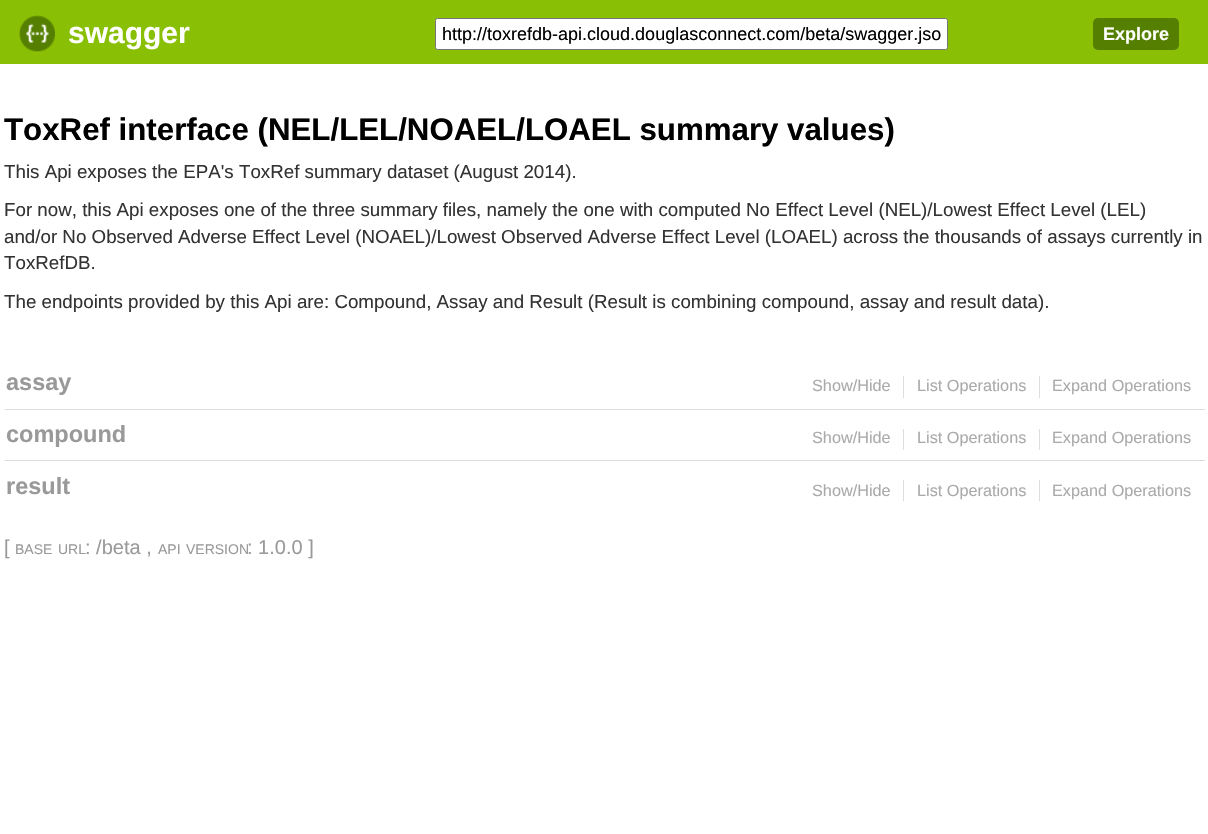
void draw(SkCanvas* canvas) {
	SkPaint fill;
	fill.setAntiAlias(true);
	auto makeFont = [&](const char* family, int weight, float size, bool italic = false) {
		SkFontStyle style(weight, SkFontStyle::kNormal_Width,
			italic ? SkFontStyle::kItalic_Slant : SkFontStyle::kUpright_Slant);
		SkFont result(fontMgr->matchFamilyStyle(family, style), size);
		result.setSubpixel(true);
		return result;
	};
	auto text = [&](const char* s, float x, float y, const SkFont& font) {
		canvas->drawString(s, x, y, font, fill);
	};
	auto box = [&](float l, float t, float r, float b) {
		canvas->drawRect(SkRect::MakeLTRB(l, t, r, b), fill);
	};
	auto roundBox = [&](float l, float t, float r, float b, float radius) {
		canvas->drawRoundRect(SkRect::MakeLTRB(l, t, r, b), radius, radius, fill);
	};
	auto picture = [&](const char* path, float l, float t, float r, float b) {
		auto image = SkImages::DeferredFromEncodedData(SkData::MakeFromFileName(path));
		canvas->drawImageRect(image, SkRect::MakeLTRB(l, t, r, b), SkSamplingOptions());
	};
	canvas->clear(0xFFFFFFFF);
	fill.setColor(0xFF89BF04);
	box(0, 0, 1208, 64);
	picture("image0.png", 19, 15, 55, 52);
	fill.setColor(0xFFFFFFFF);
	canvas->drawRoundRect(SkRect::MakeLTRB(435.5f, 18.5f, 947.5f, 49.5f), 2, 2, fill);
	fill.setStyle(SkPaint::kStroke_Style);
	fill.setStrokeWidth(1);
	fill.setColor(0xFF767676);
	canvas->drawRoundRect(SkRect::MakeLTRB(435.5f, 18.5f, 947.5f, 49.5f), 2, 2, fill);
	fill.setStyle(SkPaint::kFill_Style);
	fill.setColor(0xFF547F00);
	roundBox(1093, 18, 1179, 50, 5);
	fill.setColor(0xFFDDDDDD);
	box(5, 409, 1205, 410);
	box(903, 376, 904, 398);
	box(1039, 376, 1040, 398);
	box(5, 460, 1205, 461);
	box(903, 429, 904, 450);
	box(1039, 429, 1040, 450);
	box(903, 480, 904, 501);
	box(1039, 480, 1040, 501);
	auto font1 = makeFont("Liberation Sans", 700, 30);
	fill.setColor(0xFFFFFFFF);
	text("swagger", 68, 43, font1);
	auto font2 = makeFont("Liberation Sans", 400, 18);
	fill.setColor(0xFF000000);
	text("http://toxrefdb-api.cloud.douglasconnect.com/beta/swagger.jso", 442, 40, font2);
	auto font3 = makeFont("Liberation Sans", 700, 18);
	fill.setColor(0xFFFFFFFF);
	text("Explore", 1103, 40, font3);
	auto font4 = makeFont("Liberation Sans", 700, 31.25f);
	fill.setColor(0xFF000000);
	text("ToxRef interface (NEL/LEL/NOAEL/LOAEL summary values)", 4, 140, font4);
	auto font5 = makeFont("Liberation Sans", 400, 18.75f);
	fill.setColor(0xFF333333);
	text("This Api exposes the EPA's ToxRef summary dataset (August 2014).", 4, 178, font5);
	text("For now, this Api exposes one of the three summary files, namely the one with computed No Effect Level (NEL)/Lowest Effect Level (LEL)", 4, 216, font5);
	text("and/or No Observed Adverse Effect Level (NOAEL)/Lowest Observed Adverse Effect Level (LOAEL) across the thousands of assays currently in", 4, 243, font5);
	text("ToxRefDB.", 4, 269, font5);
	text("The endpoints provided by this Api are: Compound, Assay and Result (Result is combining compound, assay and result data).", 4, 308, font5);
	auto font6 = makeFont("Liberation Sans", 700, 23.5f);
	fill.setColor(0xFF999999);
	text("assay", 6, 390, font6);
	auto font7 = makeFont("Liberation Sans", 400, 16.25f);
	fill.setColor(0xFFAAAAAA);
	text("Show/Hide", 812, 391, font7);
	text("List Operations", 917, 391, font7);
	text("Expand Operations", 1052, 391, font7);
	fill.setColor(0xFF999999);
	text("compound", 6, 442, font6);
	fill.setColor(0xFFAAAAAA);
	text("Show/Hide", 812, 443, font7);
	text("List Operations", 917, 443, font7);
	text("Expand Operations", 1052, 443, font7);
	fill.setColor(0xFF999999);
	text("result", 6, 494, font6);
	fill.setColor(0xFFAAAAAA);
	text("Show/Hide", 812, 496, font7);
	text("List Operations", 917, 496, font7);
	text("Expand Operations", 1052, 496, font7);
	auto font8 = makeFont("Liberation Sans", 400, 20);
	fill.setColor(0xFF999999);
	text("[", 4, 554, font8);
	auto font9 = makeFont("Liberation Sans", 400, 14);
	text("BASE", 15, 554, font9);
	text("URL", 58, 554, font9);
	text(": /beta ,", 85, 554, font8);
	text("API", 158, 554, font9);
	text("VERSION", 186, 554, font9);
	text(": 1.0.0 ]", 247, 554, font8);
}
